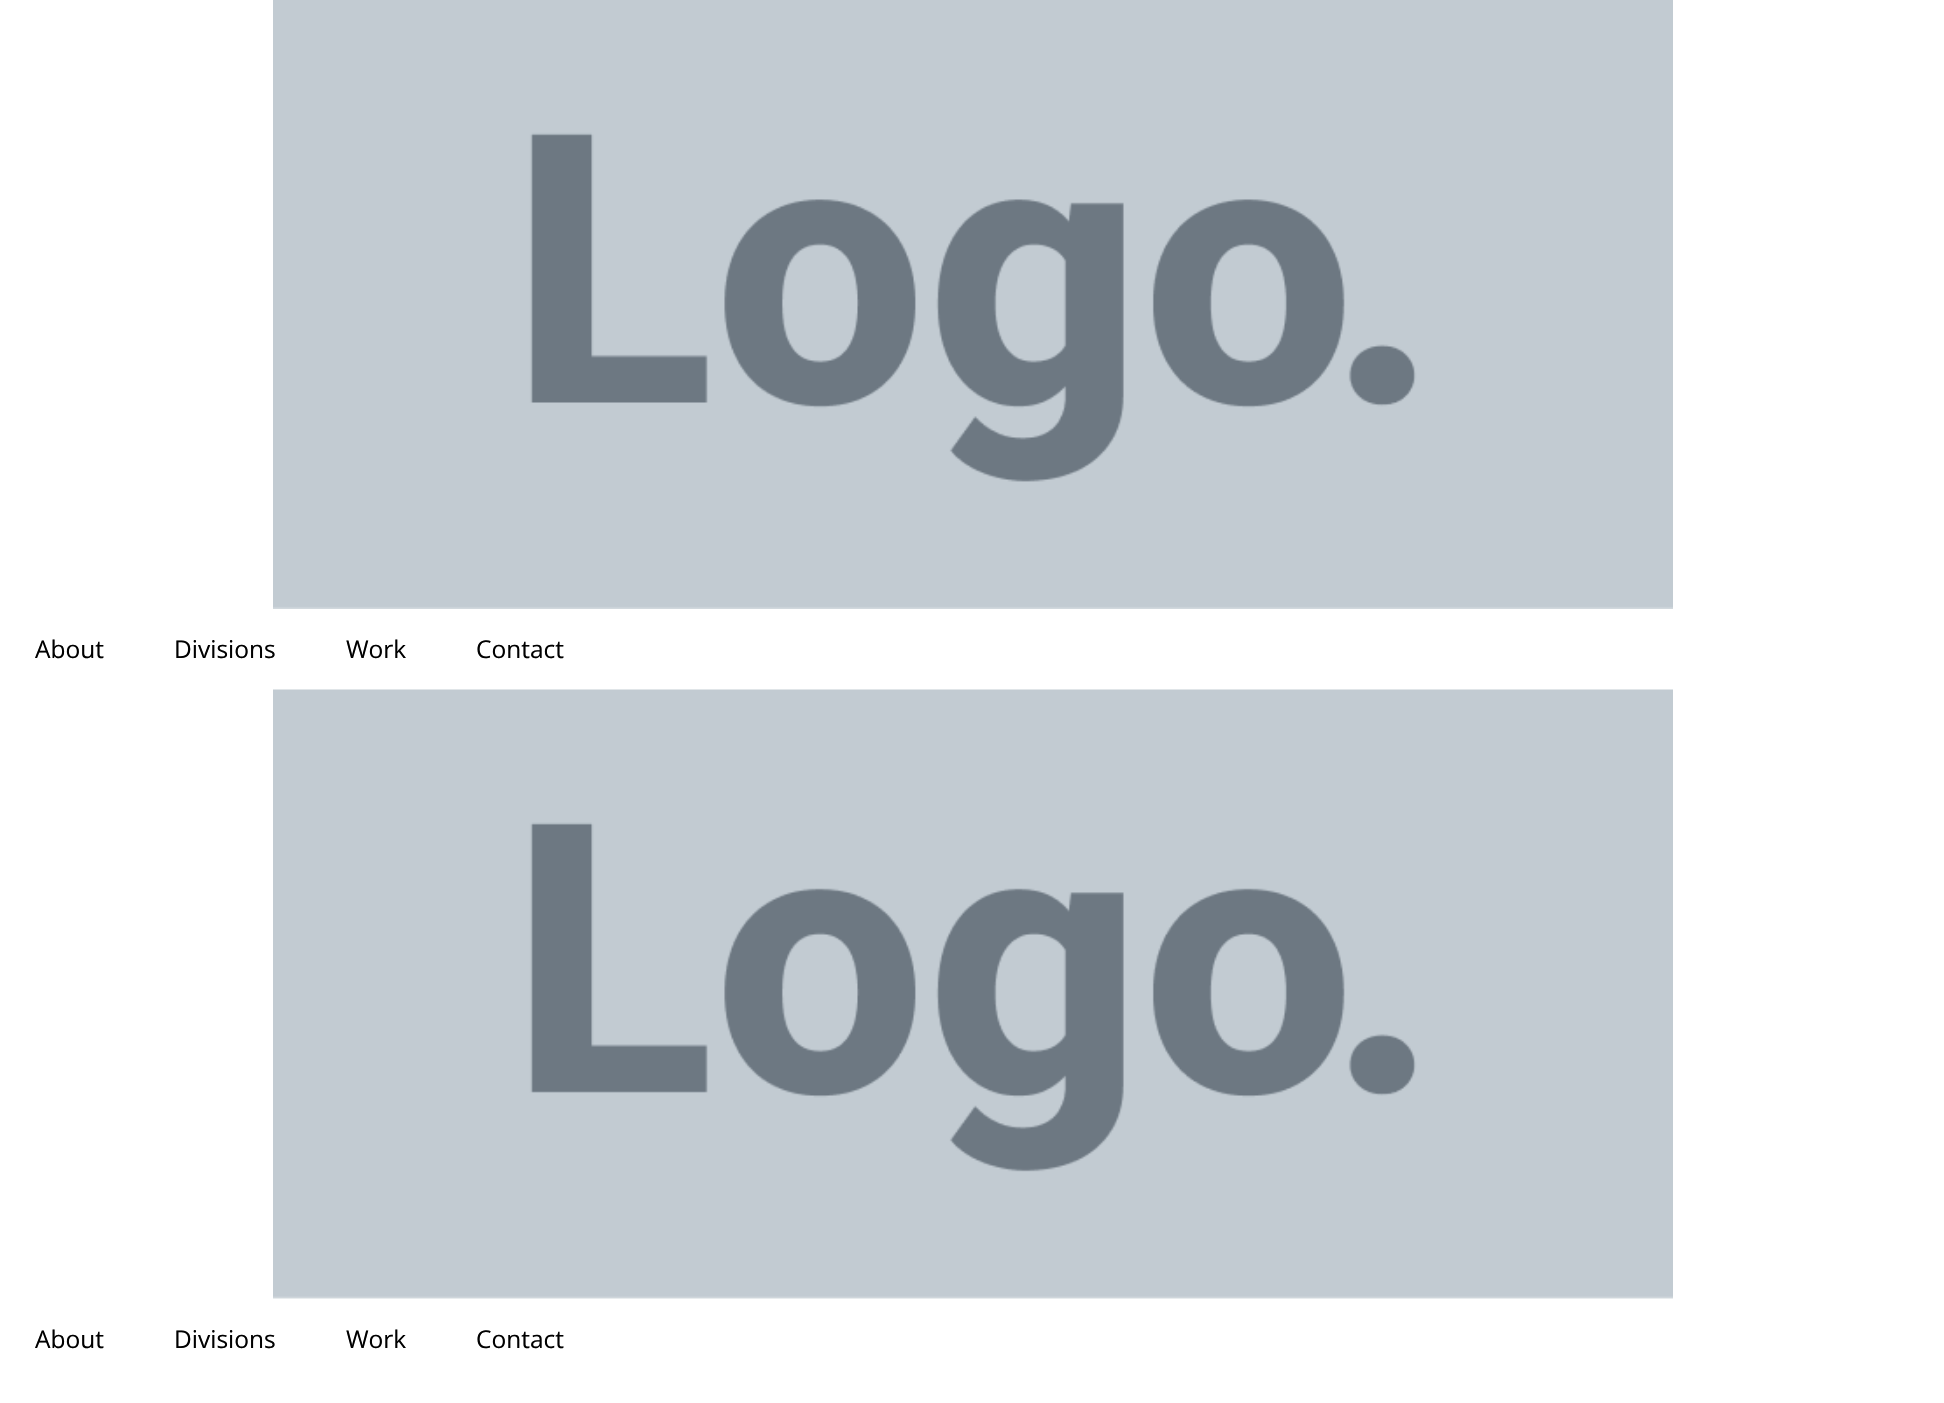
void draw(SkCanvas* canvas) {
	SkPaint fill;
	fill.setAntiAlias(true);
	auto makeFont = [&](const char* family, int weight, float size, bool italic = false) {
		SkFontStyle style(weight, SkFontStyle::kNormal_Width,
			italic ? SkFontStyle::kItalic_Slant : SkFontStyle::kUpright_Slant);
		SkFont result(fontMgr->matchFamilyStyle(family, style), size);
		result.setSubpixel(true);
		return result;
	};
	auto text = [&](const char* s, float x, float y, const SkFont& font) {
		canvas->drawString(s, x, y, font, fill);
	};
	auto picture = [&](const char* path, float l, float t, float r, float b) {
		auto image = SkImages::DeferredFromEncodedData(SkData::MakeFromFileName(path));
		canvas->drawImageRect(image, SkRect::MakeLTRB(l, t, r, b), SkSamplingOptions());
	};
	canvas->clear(0xFFFFFFFF);
	picture("image0.png", 273, 0, 1673, 609);
	picture("image1.png", 273, 689, 1673, 1299);
	auto font1 = makeFont("Open Sans", 400, 24.5f);
	fill.setColor(0xFF000000);
	text("About", 35, 658, font1);
	text("Divisions", 174, 658, font1);
	text("Work", 346, 658, font1);
	text("Contact", 476, 658, font1);
	text("About", 35, 1348, font1);
	text("Divisions", 174, 1348, font1);
	text("Work", 346, 1348, font1);
	text("Contact", 476, 1348, font1);
}
